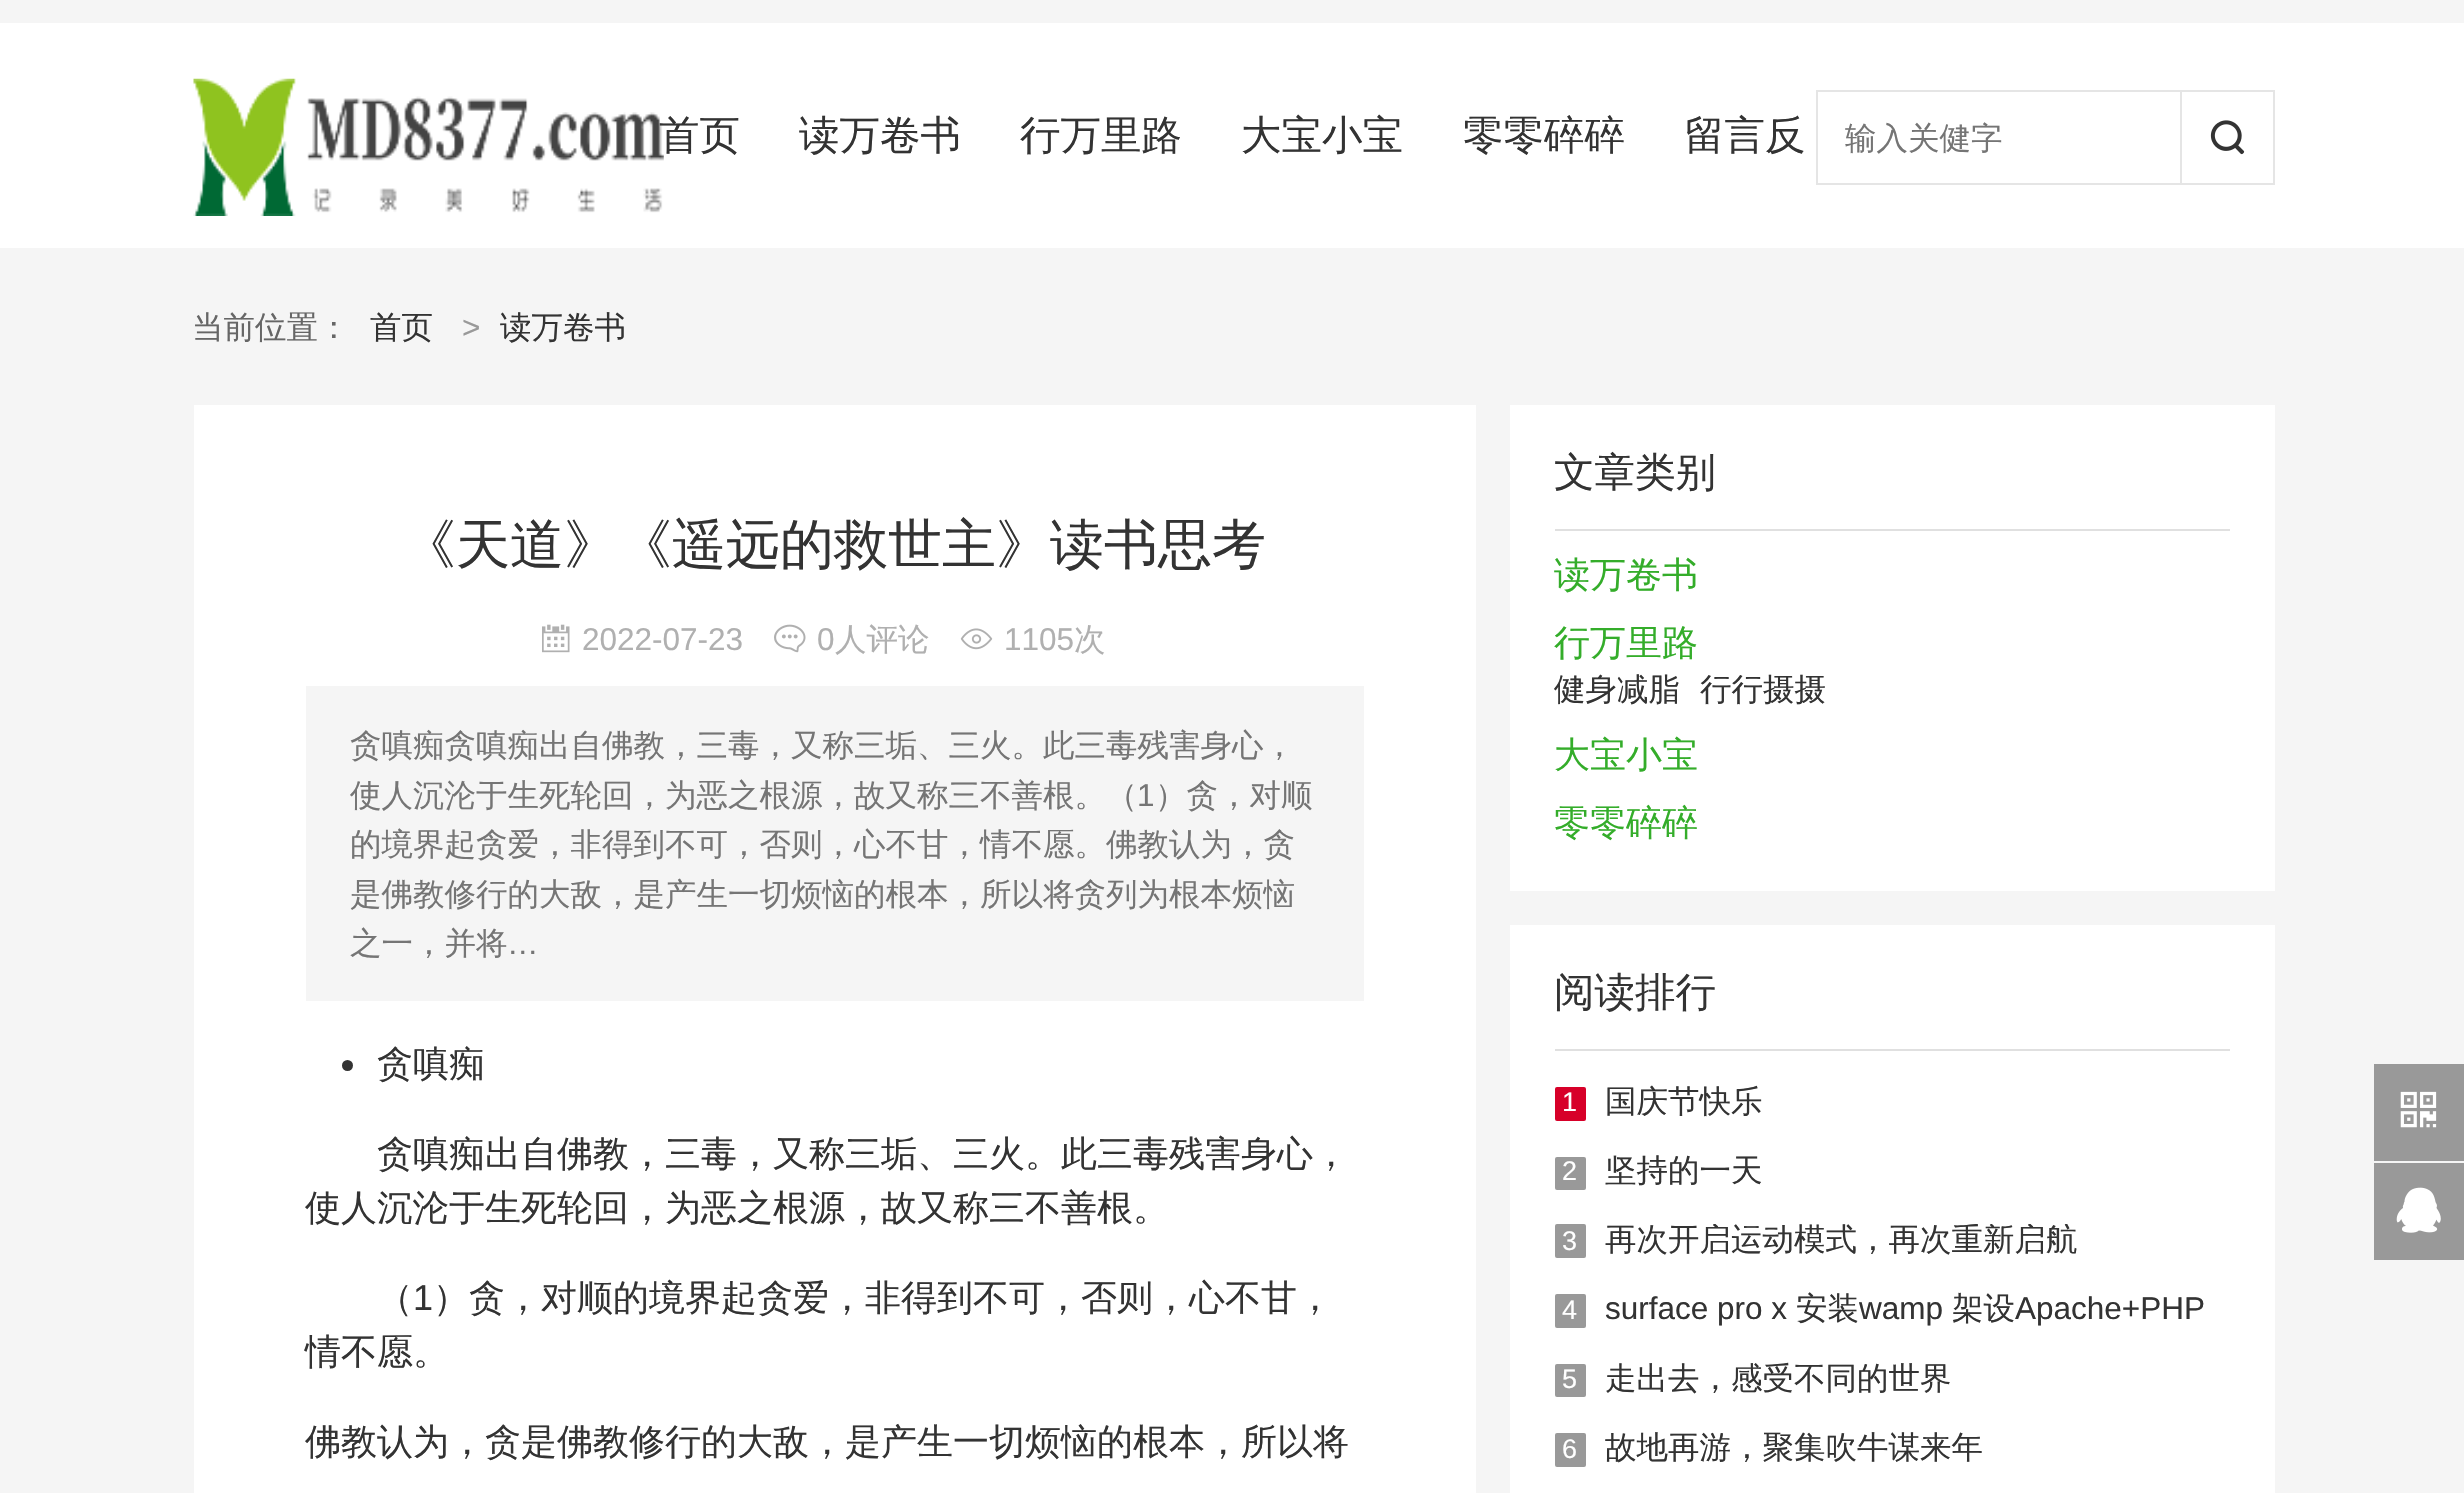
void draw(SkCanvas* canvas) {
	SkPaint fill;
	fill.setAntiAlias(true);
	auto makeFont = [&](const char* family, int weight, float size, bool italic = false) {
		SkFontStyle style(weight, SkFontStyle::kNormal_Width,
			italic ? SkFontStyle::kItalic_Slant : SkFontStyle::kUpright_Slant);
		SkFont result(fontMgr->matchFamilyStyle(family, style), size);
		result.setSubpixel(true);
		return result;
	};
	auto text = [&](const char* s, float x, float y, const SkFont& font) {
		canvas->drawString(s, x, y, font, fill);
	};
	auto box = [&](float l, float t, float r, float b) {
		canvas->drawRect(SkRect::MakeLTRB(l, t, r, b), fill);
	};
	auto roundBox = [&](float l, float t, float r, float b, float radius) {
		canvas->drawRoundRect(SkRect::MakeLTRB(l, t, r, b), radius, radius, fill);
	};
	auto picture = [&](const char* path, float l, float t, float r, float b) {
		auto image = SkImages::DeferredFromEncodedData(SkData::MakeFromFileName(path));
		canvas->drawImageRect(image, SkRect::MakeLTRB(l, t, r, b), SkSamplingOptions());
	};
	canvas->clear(0xFFF5F5F5);
	fill.setColor(0xFFFFFFFF);
	box(0, 23, 2464, 248);
	picture("image0.png", 193, 78, 664, 216);
	fill.setStyle(SkPaint::kStroke_Style);
	fill.setStrokeWidth(2);
	fill.setColor(0xFFE5E5E5);
	canvas->drawRect(SkRect::MakeLTRB(1817, 91, 2186, 184), fill);
	fill.setStyle(SkPaint::kFill_Style);
	fill.setColor(0xFFFFFFFF);
	box(2185, 92, 2187, 183);
	fill.setStyle(SkPaint::kStroke_Style);
	fill.setColor(0xFFE5E5E5);
	canvas->drawRect(SkRect::MakeLTRB(2181, 91, 2274, 184), fill);
	picture("image1.png", 2210, 120, 2245, 155);
	fill.setStyle(SkPaint::kFill_Style);
	fill.setColor(0xFFFFFFFF);
	box(194, 405, 1476, 1493);
	picture("image2.png", 542, 624, 570, 653);
	picture("image3.png", 774, 624, 806, 653);
	picture("image4.png", 960, 628, 993, 650);
	fill.setColor(0xFFF5F5F5);
	box(306, 686, 1364, 1001);
	fill.setColor(0xFF333333);
	canvas->drawCircle(347.5f, 1065.5f, 5.5f, fill);
	fill.setColor(0xFFFFFFFF);
	box(1510, 405, 2275, 891);
	fill.setColor(0xFFE0E0E0);
	box(1555, 529, 2230, 531);
	fill.setColor(0xFFFFFFFF);
	box(1510, 925, 2275, 1493);
	fill.setColor(0xFFE0E0E0);
	box(1555, 1049, 2230, 1051);
	fill.setColor(0xFFD70029);
	roundBox(1555, 1087, 1586, 1121, 2);
	fill.setColor(0xFF999999);
	roundBox(1555, 1157, 1586, 1190, 2);
	roundBox(1555, 1224, 1586, 1258, 2);
	roundBox(1555, 1294, 1586, 1328, 2);
	roundBox(1555, 1364, 1586, 1397, 2);
	roundBox(1555, 1433, 1586, 1467, 2);
	box(2374, 1064, 2464, 1161);
	picture("image5.png", 2400, 1091, 2437, 1128);
	box(2374, 1163, 2464, 1260);
	picture("image6.png", 2396, 1187, 2441, 1233);
	auto font1 = makeFont("WenQuanYi Zen Hei", 500, 40.5f);
	fill.setColor(0xFF333333);
	text("首页", 659, 149, font1);
	text("读万卷书", 799, 149, font1);
	text("行万里路", 1020, 149, font1);
	text("大宝小宝", 1241, 149, font1);
	text("零零碎碎", 1463, 149, font1);
	text("留言反", 1684, 149, font1);
	auto font2 = makeFont("WenQuanYi Zen Hei", 500, 31.5f);
	fill.setColor(0xFF757575);
	text("输入关健字", 1845, 149, font2);
	fill.setColor(0xFF666666);
	text("当前位置：", 192, 338, font2);
	fill.setColor(0xFF333333);
	text("首页", 370, 338, font2);
	auto font3 = makeFont("Liberation Sans", 400, 31.5f);
	fill.setColor(0xFF999999);
	text(">", 462, 338, font3);
	fill.setColor(0xFF333333);
	text("读万卷书", 500, 338, font2);
	auto font4 = makeFont("WenQuanYi Zen Hei", 500, 54);
	text("《天道》《遥远的救世主》读书思考", 402, 563, font4);
	fill.setColor(0xFFB0B0B0);
	text("2022-07-23", 582, 650, font3);
	text("0", 817, 650, font3);
	text("人评论", 835, 650, font2);
	text("1105", 1004, 650, font3);
	text("次", 1074, 650, font2);
	fill.setColor(0xFF757575);
	text("贪嗔痴贪嗔痴出自佛教，三毒，又称三垢、三火。此三毒残害身心，", 350, 756, font2);
	text("使人沉沦于生死轮回，为恶之根源，故又称三不善根。（", 350, 806, font2);
	text("1", 1137, 806, font3);
	text("）贪，对顺", 1155, 806, font2);
	text("的境界起贪爱，非得到不可，否则，心不甘，情不愿。佛教认为，贪", 350, 855, font2);
	text("是佛教修行的大敌，是产生一切烦恼的根本，所以将贪列为根本烦恼", 350, 905, font2);
	text("之一，并将", 350, 954, font2);
	text("…", 507, 954, font3);
	auto font5 = makeFont("WenQuanYi Zen Hei", 500, 36);
	fill.setColor(0xFF333333);
	text("贪嗔痴", 377, 1076, font5);
	text("贪嗔痴出自佛教，三毒，又称三垢、三火。此三毒残害身心，", 377, 1166, font5);
	text("使人沉沦于生死轮回，为恶之根源，故又称三不善根。", 305, 1220, font5);
	text("（", 377, 1310, font5);
	auto font6 = makeFont("Liberation Sans", 400, 36);
	text("1", 413, 1310, font6);
	text("）贪，对顺的境界起贪爱，非得到不可，否则，心不甘，", 433, 1310, font5);
	text("情不愿。", 305, 1364, font5);
	text("佛教认为，贪是佛教修行的大敌，是产生一切烦恼的根本，所以将", 305, 1454, font5);
	text("文章类别", 1554, 486, font1);
	fill.setColor(0xFF34AD2A);
	text("读万卷书", 1554, 587, font5);
	text("行万里路", 1554, 655, font5);
	fill.setColor(0xFF333333);
	text("健身减脂", 1554, 700, font2);
	text("行行摄摄", 1700, 700, font2);
	fill.setColor(0xFF34AD2A);
	text("大宝小宝", 1554, 767, font5);
	text("零零碎碎", 1554, 835, font5);
	fill.setColor(0xFF333333);
	text("阅读排行", 1554, 1006, font1);
	auto font7 = makeFont("Liberation Sans", 400, 27);
	fill.setColor(0xFFFFFFFF);
	text("1", 1562, 1111, font7);
	fill.setColor(0xFF333333);
	text("国庆节快乐", 1605, 1112, font2);
	fill.setColor(0xFFFFFFFF);
	text("2", 1562, 1180, font7);
	fill.setColor(0xFF333333);
	text("坚持的一天", 1605, 1181, font2);
	fill.setColor(0xFFFFFFFF);
	text("3", 1562, 1250, font7);
	canvas->save();
	canvas->clipRect(SkRect::MakeLTRB(1555, 1224, 2230, 1258));
	fill.setColor(0xFF333333);
	text("再次开启运动模式，再次重新启航", 1605, 1250, font2);
	canvas->restore();
	fill.setColor(0xFFFFFFFF);
	text("4", 1562, 1319, font7);
	fill.setColor(0xFF333333);
	text("surface pro x", 1605, 1319, font3);
	text("安装", 1796, 1319, font2);
	text("wamp", 1859, 1319, font3);
	text("架设", 1952, 1319, font2);
	text("Apache+PHP", 2015, 1319, font3);
	fill.setColor(0xFFFFFFFF);
	text("5", 1562, 1388, font7);
	fill.setColor(0xFF333333);
	text("走出去，感受不同的世界", 1605, 1389, font2);
	fill.setColor(0xFFFFFFFF);
	text("6", 1562, 1458, font7);
	fill.setColor(0xFF333333);
	text("故地再游，聚集吹牛谋来年", 1605, 1458, font2);
}
